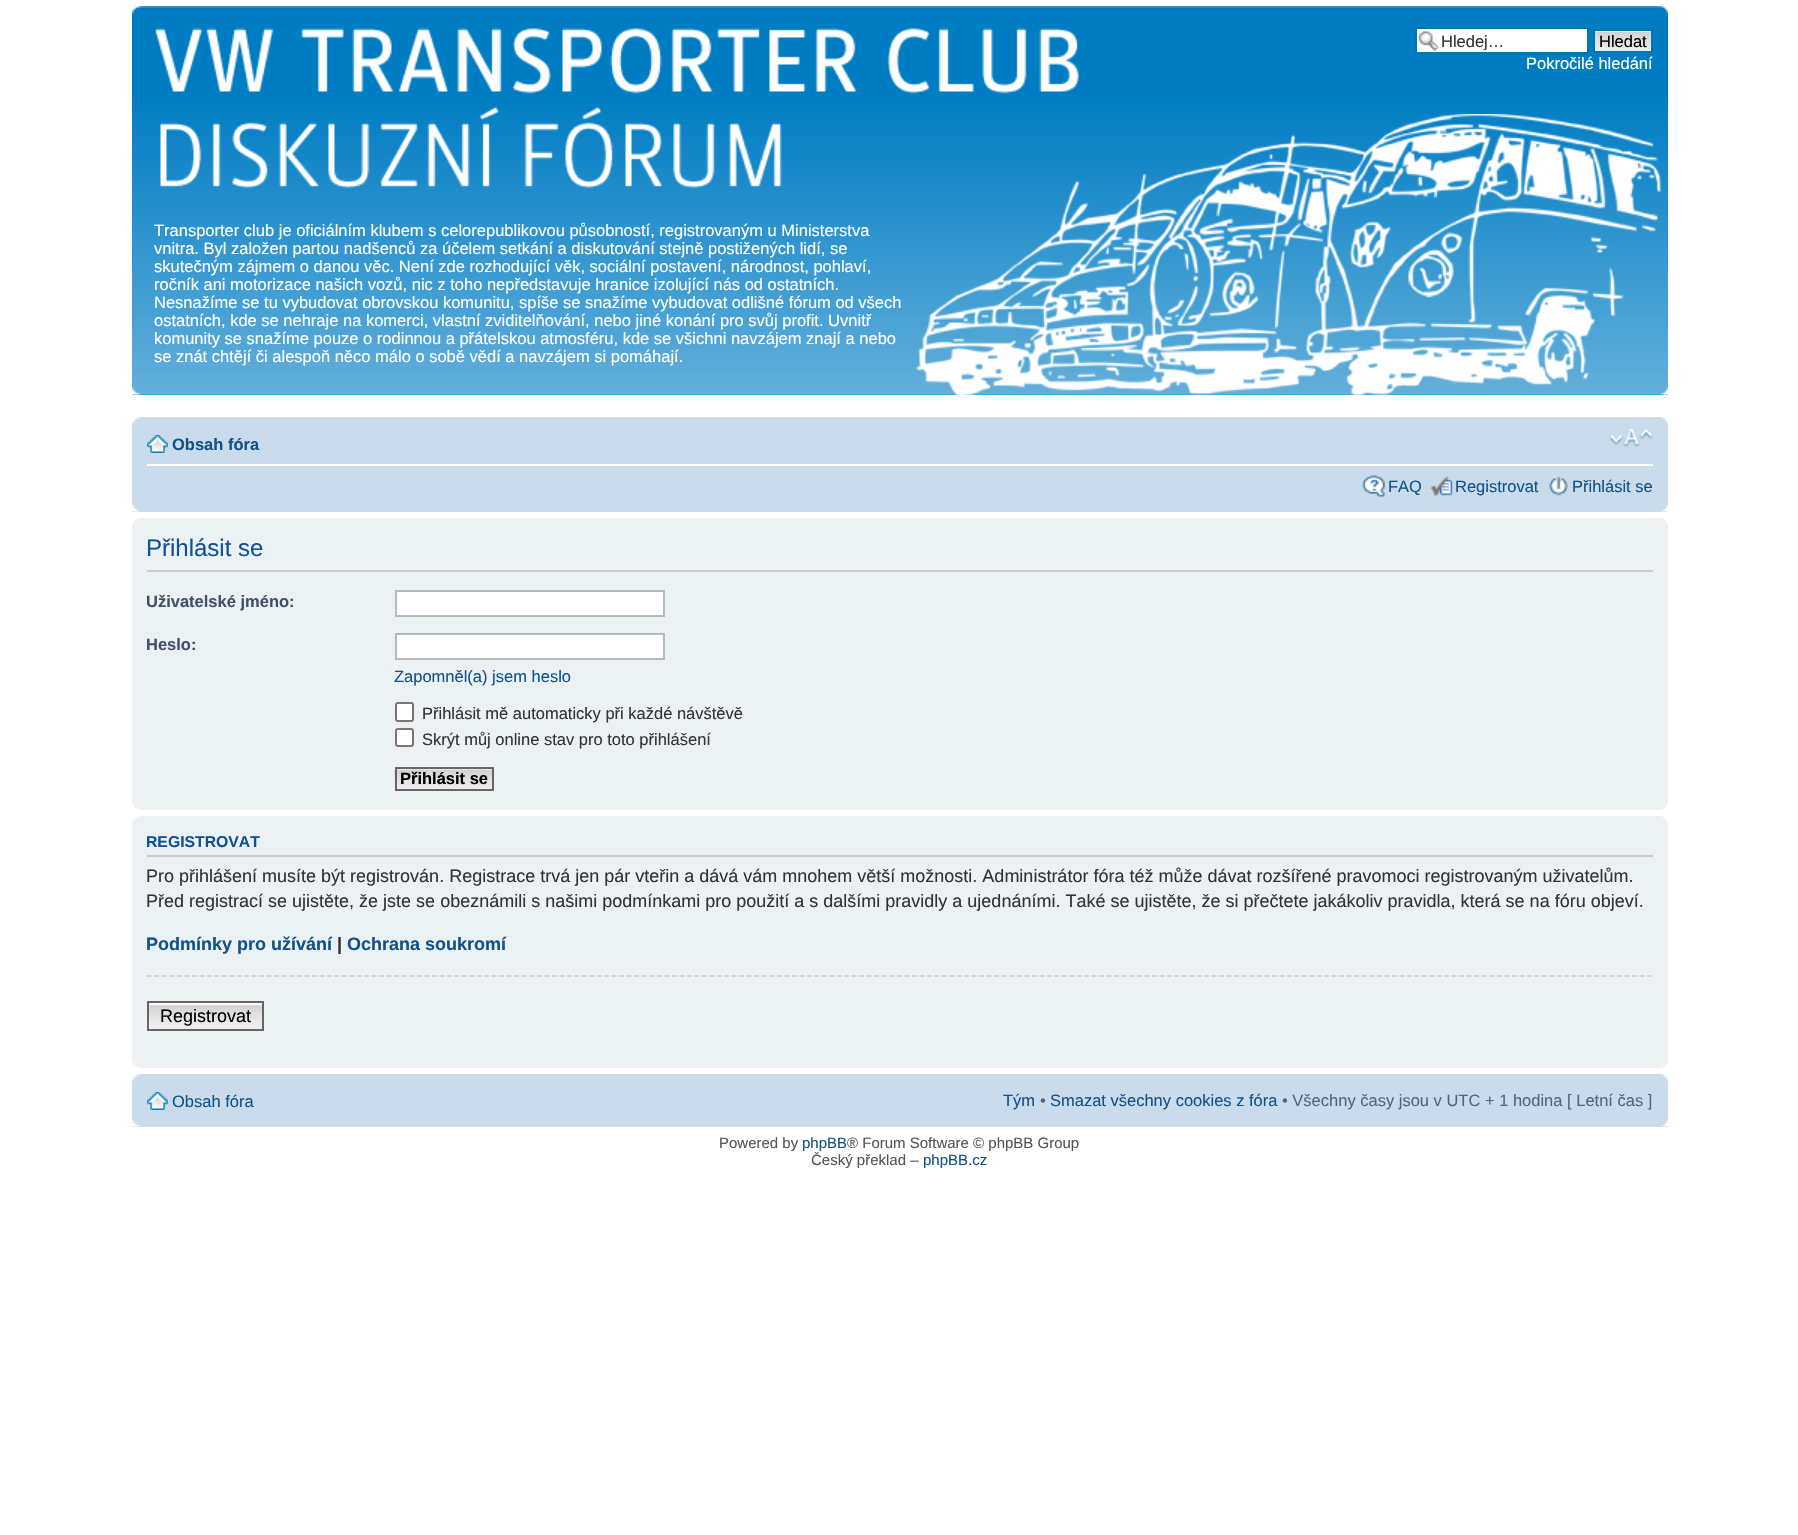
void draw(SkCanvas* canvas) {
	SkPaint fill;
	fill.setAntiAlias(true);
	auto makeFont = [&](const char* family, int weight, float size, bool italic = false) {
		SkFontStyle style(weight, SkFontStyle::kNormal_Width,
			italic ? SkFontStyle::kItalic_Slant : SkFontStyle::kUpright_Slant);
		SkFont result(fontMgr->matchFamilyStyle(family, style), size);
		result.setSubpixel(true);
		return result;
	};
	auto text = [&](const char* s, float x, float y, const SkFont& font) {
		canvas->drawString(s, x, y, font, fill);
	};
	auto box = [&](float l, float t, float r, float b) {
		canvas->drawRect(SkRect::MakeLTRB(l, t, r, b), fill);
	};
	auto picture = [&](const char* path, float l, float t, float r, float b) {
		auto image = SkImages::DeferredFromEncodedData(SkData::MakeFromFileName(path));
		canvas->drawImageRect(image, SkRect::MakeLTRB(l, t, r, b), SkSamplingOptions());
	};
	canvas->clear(0xFFFFFFFF);
	fill.setColor(0xFF12A3EB);
	box(132, 394, 1668, 395);
	picture("image0.png", 132, 6, 1668, 395);
	picture("image1.png", 132, 6, 142, 14);
	picture("image2.png", 1659, 6, 1668, 14);
	fill.setColor(0xFFFFFFFF);
	box(1417, 29, 1587, 52);
	picture("image3.png", 1418, 31, 1439, 51);
	fill.setStyle(SkPaint::kStroke_Style);
	fill.setStrokeWidth(2);
	fill.setColor(0xFF0075B0);
	canvas->drawRect(SkRect::MakeLTRB(1416, 28, 1588, 53), fill);
	picture("image4.png", 1595, 31, 1651, 51);
	canvas->drawRect(SkRect::MakeLTRB(1594, 30, 1652, 52), fill);
	picture("image5.png", 154, 28, 1079, 188);
	picture("image8.png", 1660, 387, 1668, 395);
	picture("image6.png", 916, 114, 1661, 395);
	picture("image7.png", 132, 387, 141, 395);
	fill.setStyle(SkPaint::kFill_Style);
	fill.setColor(0xFFCADCEB);
	box(132, 417, 1668, 512);
	picture("image9.png", 132, 417, 141, 425);
	picture("image10.png", 1660, 417, 1668, 425);
	fill.setColor(0xFFFFFFFF);
	box(147, 464, 1653, 466);
	picture("image11.png", 147, 435, 168, 453);
	picture("image12.png", 1609, 428, 1653, 448);
	picture("image13.png", 1362, 475, 1386, 497);
	picture("image14.png", 1430, 476, 1453, 497);
	picture("image15.png", 1549, 476, 1568, 496);
	picture("image16.png", 132, 504, 141, 512);
	picture("image17.png", 1660, 504, 1668, 512);
	fill.setColor(0xFFECF1F3);
	box(132, 518, 1668, 810);
	picture("image18.png", 132, 518, 140, 525);
	picture("image19.png", 1661, 518, 1668, 525);
	fill.setColor(0xFFCCCCCC);
	box(147, 570, 1653, 572);
	fill.setColor(0xFFFFFFFF);
	canvas->drawRect(SkRect::MakeLTRB(396, 591, 664, 616), fill);
	fill.setStyle(SkPaint::kStroke_Style);
	fill.setColor(0xFFB4BAC0);
	canvas->drawRect(SkRect::MakeLTRB(396, 591, 664, 616), fill);
	fill.setStyle(SkPaint::kFill_Style);
	fill.setColor(0xFFFFFFFF);
	canvas->drawRect(SkRect::MakeLTRB(396, 634, 664, 659), fill);
	fill.setStyle(SkPaint::kStroke_Style);
	fill.setColor(0xFFB4BAC0);
	canvas->drawRect(SkRect::MakeLTRB(396, 634, 664, 659), fill);
	fill.setStyle(SkPaint::kFill_Style);
	fill.setColor(0xFFFFFFFF);
	canvas->drawRoundRect(SkRect::MakeLTRB(396, 703, 413, 721), 2, 2, fill);
	fill.setStyle(SkPaint::kStroke_Style);
	fill.setColor(0xFF767676);
	canvas->drawRoundRect(SkRect::MakeLTRB(396, 703, 413, 721), 2, 2, fill);
	fill.setStyle(SkPaint::kFill_Style);
	fill.setColor(0xFFFFFFFF);
	canvas->drawRoundRect(SkRect::MakeLTRB(396, 729, 413, 746), 2, 2, fill);
	fill.setStyle(SkPaint::kStroke_Style);
	fill.setColor(0xFF767676);
	canvas->drawRoundRect(SkRect::MakeLTRB(396, 729, 413, 746), 2, 2, fill);
	picture("image20.png", 394, 768, 492, 791);
	fill.setColor(0xFF666666);
	canvas->drawRect(SkRect::MakeLTRB(396, 768, 493, 790), fill);
	picture("image21.png", 132, 803, 140, 810);
	picture("image22.png", 1661, 803, 1668, 810);
	fill.setStyle(SkPaint::kFill_Style);
	fill.setColor(0xFFECF1F3);
	box(132, 816, 1668, 1068);
	picture("image23.png", 132, 816, 140, 823);
	picture("image24.png", 1661, 816, 1668, 823);
	fill.setColor(0xFFCCCCCC);
	box(147, 855, 1653, 857);
	fill.setStyle(SkPaint::kStroke_Style);
	fill.setStrokeWidth(1.5f);
	fill.setPathEffect(SkDashPathEffect::Make({{4.5f, 3}}, 0));
	canvas->drawPath(SkPathBuilder().moveTo(147, 976).lineTo(1653, 976).detach(), fill);
	fill.setPathEffect(nullptr);
	picture("image25.png", 149, 1005, 262, 1029);
	fill.setStyle(SkPaint::kFill_Style);
	fill.setColor(0xFFFAFAFA);
	box(149, 1003, 262, 1005);
	fill.setStyle(SkPaint::kStroke_Style);
	fill.setStrokeWidth(2);
	fill.setColor(0xFF666666);
	canvas->drawRect(SkRect::MakeLTRB(148, 1002, 263, 1030), fill);
	picture("image21.png", 132, 1061, 140, 1068);
	picture("image22.png", 1661, 1061, 1668, 1068);
	fill.setStyle(SkPaint::kFill_Style);
	fill.setColor(0xFFCADCEB);
	box(132, 1074, 1668, 1127);
	picture("image9.png", 132, 1074, 141, 1082);
	picture("image10.png", 1660, 1074, 1668, 1082);
	picture("image11.png", 147, 1092, 168, 1110);
	picture("image16.png", 132, 1119, 141, 1127);
	picture("image17.png", 1660, 1119, 1668, 1127);
	canvas->save();
	canvas->clipRect(SkRect::MakeLTRB(1442, 32, 1584, 50));
	auto font1 = makeFont("Liberation Sans", 400, 16.5f);
	fill.setColor(0xFF333333);
	text("Hledej…", 1441, 47, font1);
	canvas->restore();
	fill.setColor(0xFF000000);
	text("Hledat", 1599, 47, font1);
	fill.setColor(0xFFFFFFFF);
	text("Pokročilé hledání", 1526, 69, font1);
	text("Transporter club je oficiálním klubem s celorepublikovou působností, registrovaným u Ministerstva", 154, 236, font1);
	text("vnitra. Byl založen partou nadšenců za účelem setkání a diskutování stejně postižených lidí, se", 154, 254, font1);
	text("skutečným zájmem o danou věc. Není zde rozhodující věk, sociální postavení, národnost, pohlaví,", 154, 272, font1);
	text("ročník ani motorizace našich vozů, nic z toho nepředstavuje hranice izolující nás od ostatních.", 154, 290, font1);
	text("Nesnažíme se tu vybudovat obrovskou komunitu, spíše se snažíme vybudovat odlišné fórum od všech", 154, 308, font1);
	text("ostatních, kde se nehraje na komerci, vlastní zviditelňování, nebo jiné konání pro svůj profit. Uvnitř", 154, 326, font1);
	text("komunity se snažíme pouze o rodinnou a přátelskou atmosféru, kde se všichni navzájem znají a nebo", 154, 344, font1);
	text("se znát chtějí či alespoň něco málo o sobě vědí a navzájem si pomáhají.", 154, 362, font1);
	auto font2 = makeFont("Liberation Sans", 700, 16.5f);
	fill.setColor(0xFF105289);
	text("Obsah fóra", 172, 450, font2);
	text("FAQ", 1388, 492, font1);
	text("Registrovat", 1455, 492, font1);
	text("Přihlásit se", 1572, 492, font1);
	auto font3 = makeFont("Liberation Sans", 400, 24);
	fill.setColor(0xFF115098);
	text("Přihlásit se", 146, 556, font3);
	fill.setColor(0xFF425067);
	text("Uživatelské jméno:", 146, 607, font2);
	text("Heslo:", 146, 650, font2);
	fill.setColor(0xFF105289);
	text("Zapomněl(a) jsem heslo", 394, 682, font1);
	fill.setColor(0xFF333333);
	text("Přihlásit mě automaticky při každé návštěvě", 422, 719, font1);
	text("Skrýt můj online stav pro toto přihlášení", 422, 745, font1);
	fill.setColor(0xFF000000);
	text("Přihlásit se", 400, 784, font2);
	auto font4 = makeFont("Liberation Sans", 700, 15.75f);
	fill.setColor(0xFF115098);
	text("REGISTROVAT", 146, 847, font4);
	auto font5 = makeFont("Liberation Sans", 400, 18);
	fill.setColor(0xFF333333);
	text("Pro přihlášení musíte být registrován. Registrace trvá jen pár vteřin a dává vám mnohem větší možnosti. Administrátor fóra též může dávat rozšířené pravomoci registrovaným uživatelům.", 146, 882, font5);
	text("Před registrací se ujistěte, že jste se obeznámili s našimi podmínkami pro použití a s dalšími pravidly a ujednáními. Také se ujistěte, že si přečtete jakákoliv pravidla, která se na fóru objeví.", 146, 907, font5);
	auto font6 = makeFont("Liberation Sans", 700, 18);
	fill.setColor(0xFF105289);
	text("Podmínky pro užívání", 146, 950, font6);
	fill.setColor(0xFF333333);
	text("|", 337, 950, font6);
	fill.setColor(0xFF105289);
	text("Ochrana soukromí", 347, 950, font6);
	fill.setColor(0xFF000000);
	text("Registrovat", 160, 1022, font5);
	fill.setColor(0xFF105289);
	text("Obsah fóra", 172, 1107, font1);
	text("Tým", 1003, 1106, font1);
	fill.setColor(0xFF536482);
	text("•", 1040, 1106, font1);
	fill.setColor(0xFF105289);
	text("Smazat všechny cookies z fóra", 1050, 1106, font1);
	fill.setColor(0xFF536482);
	text("• Všechny časy jsou v UTC + 1 hodina [ Letní čas ]", 1282, 1106, font1);
	auto font7 = makeFont("Liberation Sans", 400, 15);
	fill.setColor(0xFF555555);
	text("Powered by", 719, 1148, font7);
	fill.setColor(0xFF105289);
	text("phpBB", 802, 1148, font7);
	fill.setColor(0xFF555555);
	text("® Forum Software © phpBB Group", 847, 1148, font7);
	text("Český překlad –", 811, 1165, font7);
	fill.setColor(0xFF105289);
	text("phpBB.cz", 923, 1165, font7);
}
